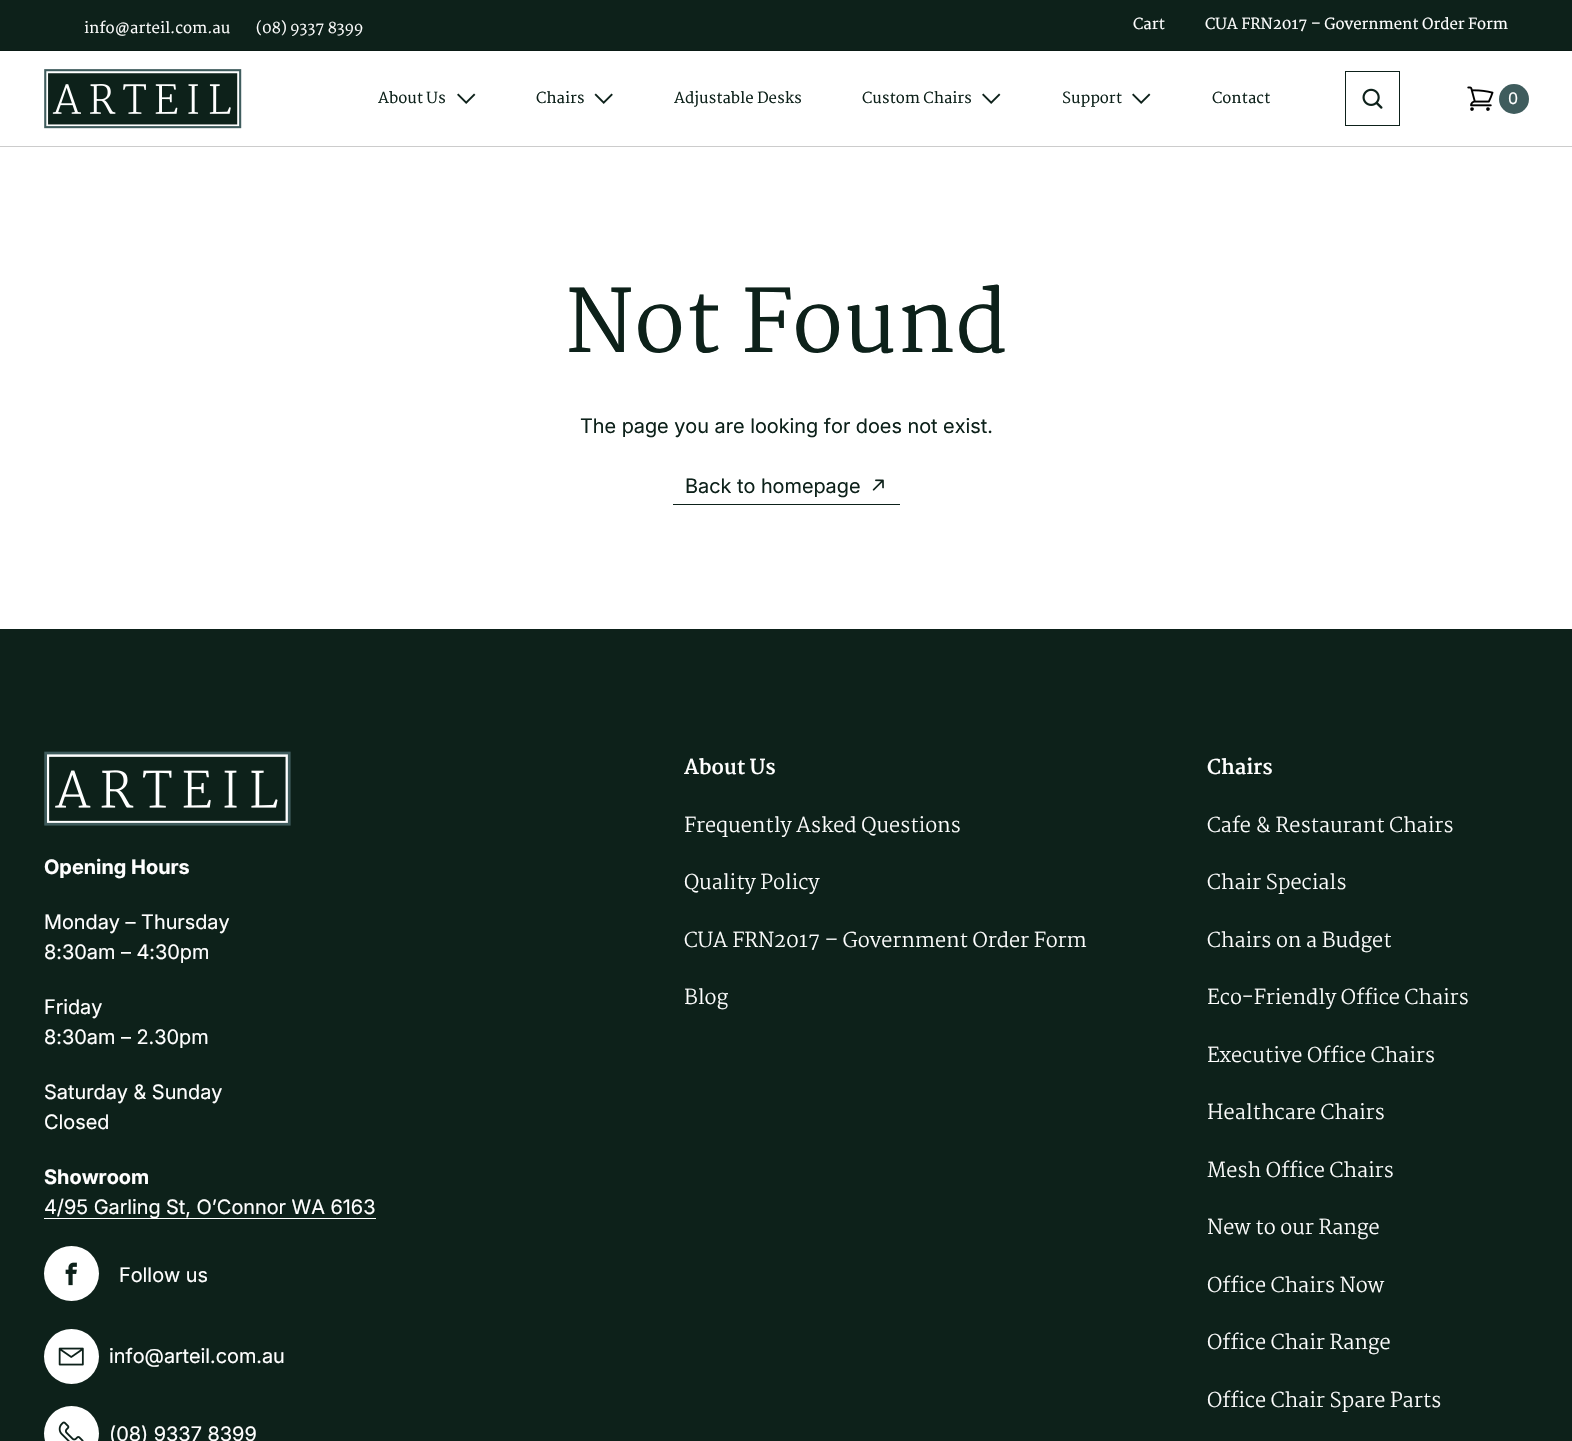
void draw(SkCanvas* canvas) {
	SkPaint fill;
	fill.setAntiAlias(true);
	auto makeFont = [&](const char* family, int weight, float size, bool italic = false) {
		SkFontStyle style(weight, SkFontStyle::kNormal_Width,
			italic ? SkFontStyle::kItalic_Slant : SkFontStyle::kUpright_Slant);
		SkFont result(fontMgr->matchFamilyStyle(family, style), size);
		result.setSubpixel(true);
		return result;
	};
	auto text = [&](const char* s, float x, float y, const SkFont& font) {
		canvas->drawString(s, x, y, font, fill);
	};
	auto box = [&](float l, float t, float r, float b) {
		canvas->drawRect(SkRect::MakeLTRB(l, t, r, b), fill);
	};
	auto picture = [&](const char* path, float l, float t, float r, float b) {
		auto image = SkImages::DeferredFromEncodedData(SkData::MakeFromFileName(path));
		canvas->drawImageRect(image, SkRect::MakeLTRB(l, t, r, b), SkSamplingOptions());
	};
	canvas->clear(0xFFFFFFFF);
	fill.setColor(0xFF0D211A);
	box(0, 0, 1572, 50);
	fill.setColor(0xFF0A1A15);
	box(0, 50, 1572, 51);
	fill.setColor(0xFFCCCCCC);
	box(0, 146, 1572, 147);
	picture("image0.png", 44, 69, 242, 129);
	picture("image1.png", 457, 93, 476, 104);
	picture("image2.png", 594, 93, 613, 104);
	picture("image1.png", 982, 93, 1001, 104);
	picture("image1.png", 1132, 93, 1151, 104);
	fill.setStyle(SkPaint::kStroke_Style);
	fill.setStrokeWidth(1);
	fill.setColor(0xFF0D211A);
	canvas->drawRect(SkRect::MakeLTRB(1345.5f, 71.5f, 1399.5f, 125.5f), fill);
	picture("image3.png", 1362, 88, 1383, 109);
	picture("image4.png", 1467, 86, 1494, 111);
	fill.setStyle(SkPaint::kFill_Style);
	fill.setColor(0xFF3F5C5D);
	canvas->drawCircle(1514, 99, 15, fill);
	picture("image5.png", 872, 479, 884, 491);
	fill.setColor(0xFF0D211A);
	box(673, 504, 900, 505);
	box(0, 629, 1572, 1441);
	picture("image6.png", 44, 751, 291, 826);
	fill.setColor(0xFFFFFFFF);
	box(44, 1218, 376, 1219);
	canvas->drawCircle(71.5f, 1273.5f, 27.5f, fill);
	picture("image7.png", 65, 1262, 77, 1286);
	canvas->drawCircle(71.5f, 1356.5f, 27.5f, fill);
	picture("image8.png", 58, 1347, 84, 1366);
	canvas->drawCircle(71.5f, 1433.5f, 27.5f, fill);
	picture("image9.png", 58, 1421, 84, 1441);
	auto font1 = makeFont("Martel", 400, 15);
	text("info@arteil.com.au", 84, 33, font1);
	text("(08) 9337 8399", 256, 33, font1);
	auto font2 = makeFont("Martel", 600, 15);
	text("Cart", 1133, 29, font2);
	text("CUA FRN2017 – Government Order Form", 1205, 29, font2);
	fill.setColor(0xFF0D211A);
	text("About Us", 378, 103, font2);
	text("Chairs", 536, 103, font2);
	text("Adjustable Desks", 674, 103, font2);
	text("Custom Chairs", 862, 103, font2);
	text("Support", 1062, 103, font2);
	text("Contact", 1212, 103, font2);
	auto font3 = makeFont("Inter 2", 400, 16);
	fill.setColor(0xFFFFFFFF);
	text("0", 1508, 104, font3);
	auto font4 = makeFont("Martel", 400, 85);
	fill.setColor(0xFF0D211A);
	text("Not Found", 565, 352, font4);
	auto font5 = makeFont("Inter", 400, 20);
	text("The page you are looking for does not exist.", 580, 433, font5);
	text("Back to homepage", 685, 493, font5);
	auto font6 = makeFont("Inter", 700, 20);
	fill.setColor(0xFFFFFFFF);
	text("Opening Hours", 44, 874, font6);
	text("Monday – Thursday", 44, 929, font5);
	text("8:30am – 4:30pm", 44, 959, font5);
	text("Friday", 44, 1014, font5);
	text("8:30am – 2.30pm", 44, 1044, font5);
	text("Saturday & Sunday", 44, 1099, font5);
	text("Closed", 44, 1129, font5);
	text("Showroom", 44, 1184, font6);
	text("4/95 Garling St, O’Connor WA 6163", 44, 1214, font5);
	text("Follow us", 119, 1282, font5);
	text("info@arteil.com.au", 109, 1363, font5);
	text("(08) 9337 8399", 109, 1441, font5);
	auto font7 = makeFont("Martel", 700, 20);
	text("About Us", 684, 774, font7);
	auto font8 = makeFont("Martel", 300, 20);
	text("Frequently Asked Questions", 684, 832, font8);
	text("Quality Policy", 684, 889, font8);
	text("CUA FRN2017 – Government Order Form", 684, 947, font8);
	text("Blog", 684, 1004, font8);
	text("Chairs", 1207, 774, font7);
	text("Cafe & Restaurant Chairs", 1207, 832, font8);
	text("Chair Specials", 1207, 889, font8);
	text("Chairs on a Budget", 1207, 947, font8);
	text("Eco-Friendly Office Chairs", 1207, 1004, font8);
	text("Executive Office Chairs", 1207, 1062, font8);
	text("Healthcare Chairs", 1207, 1119, font8);
	text("Mesh Office Chairs", 1207, 1177, font8);
	text("New to our Range", 1207, 1234, font8);
	text("Office Chairs Now", 1207, 1292, font8);
	text("Office Chair Range", 1207, 1349, font8);
	text("Office Chair Spare Parts", 1207, 1407, font8);
}
